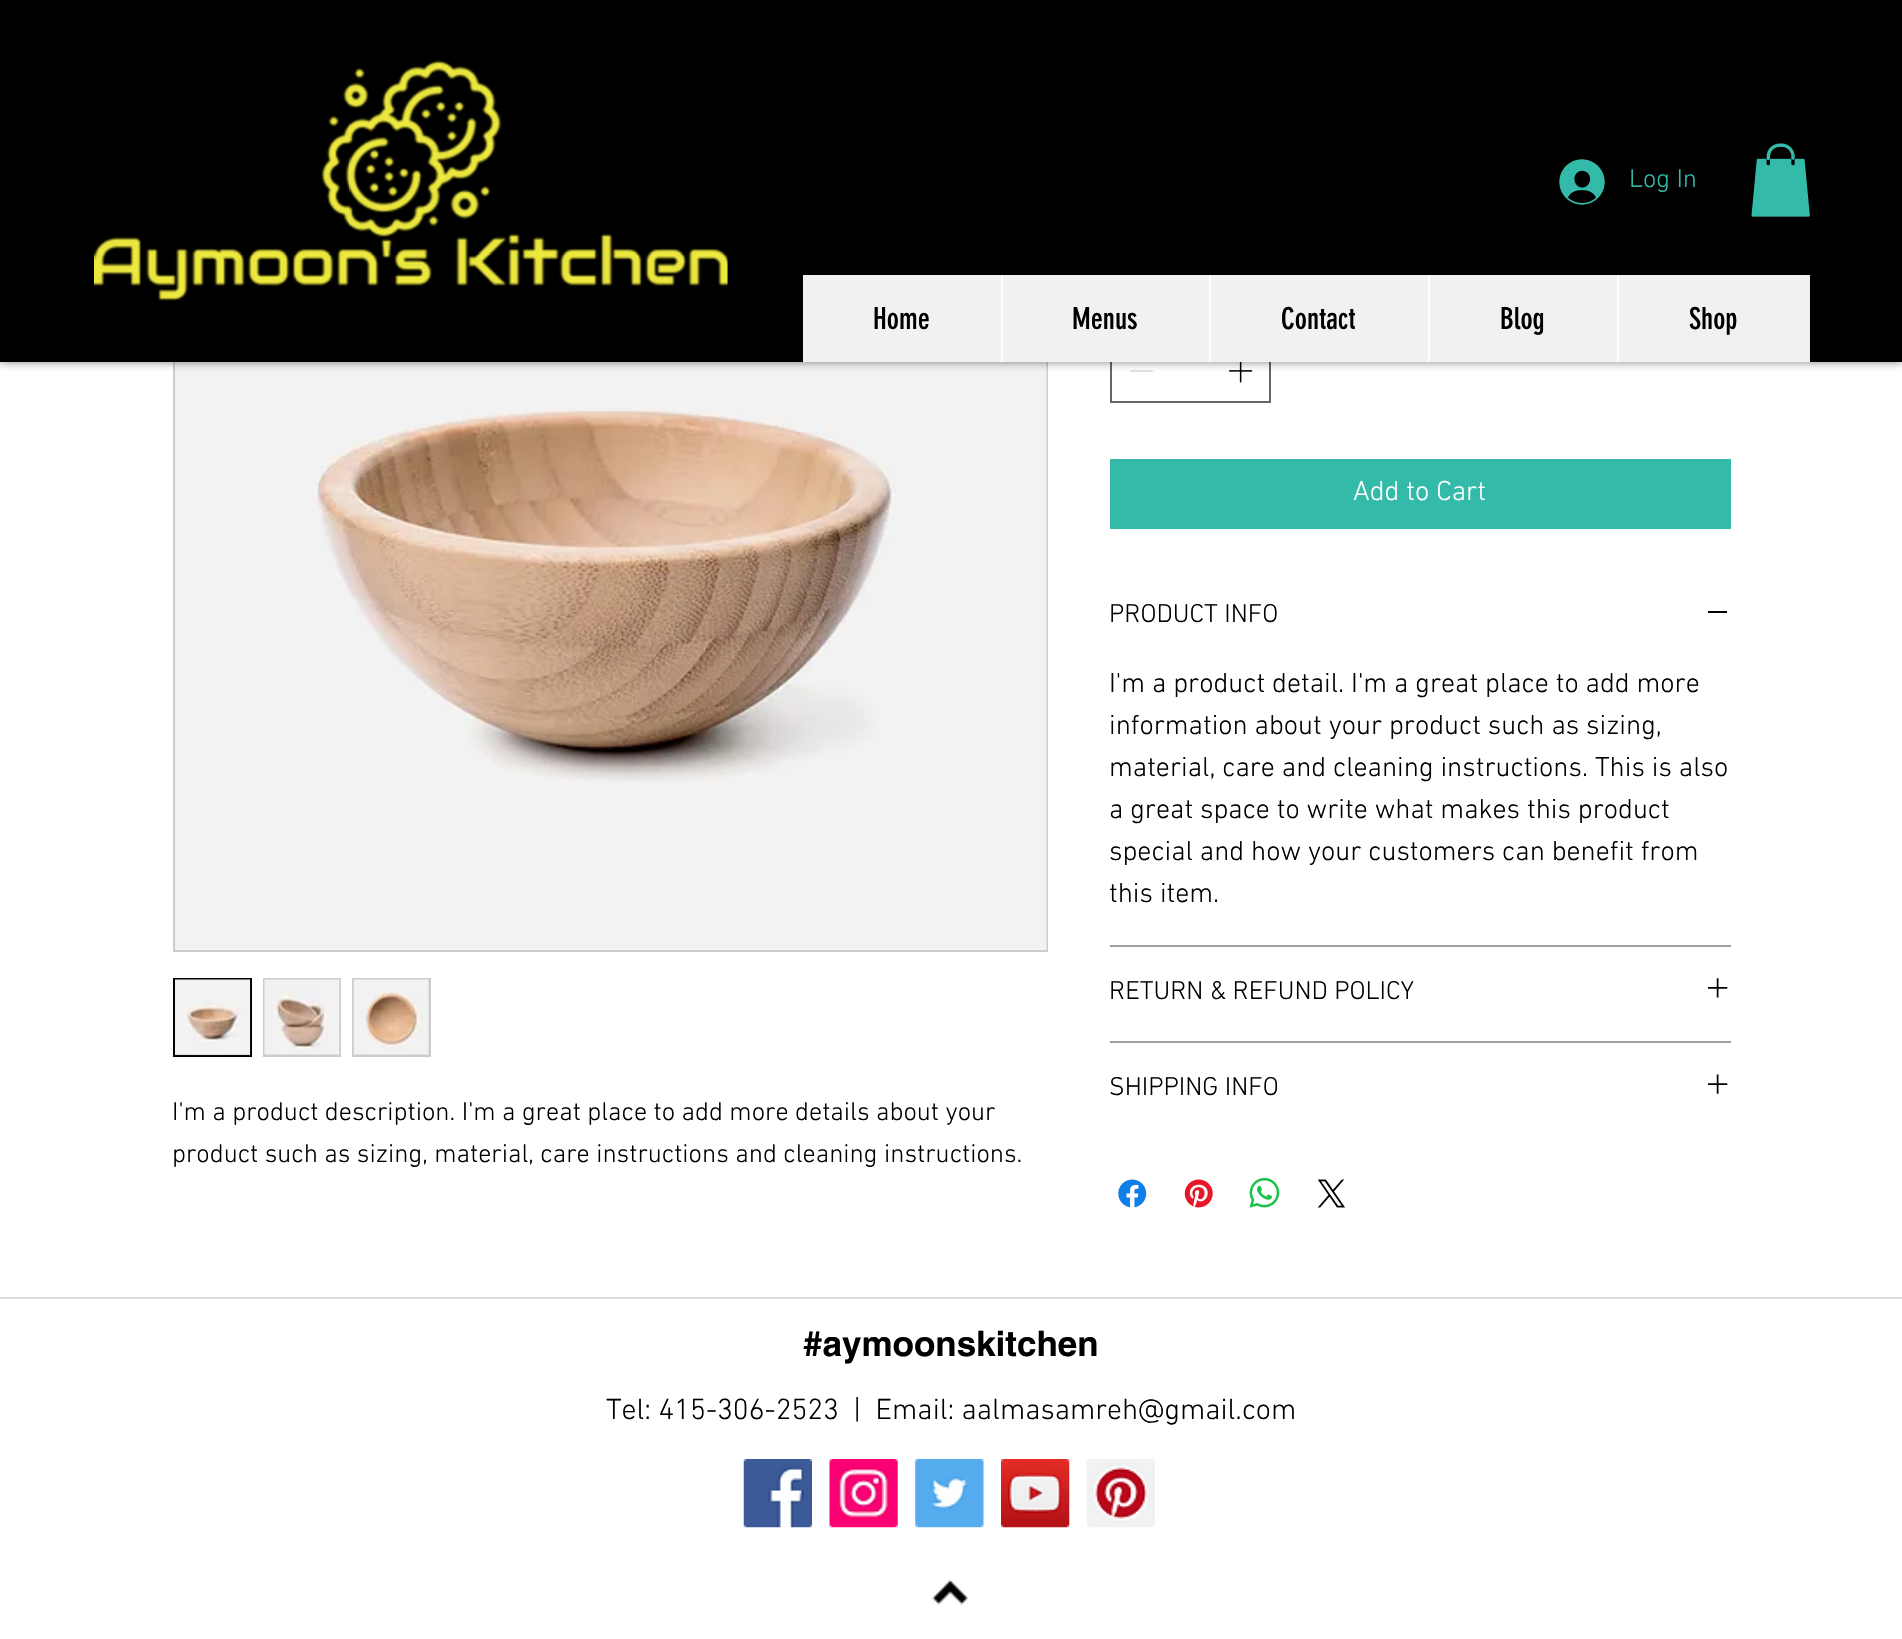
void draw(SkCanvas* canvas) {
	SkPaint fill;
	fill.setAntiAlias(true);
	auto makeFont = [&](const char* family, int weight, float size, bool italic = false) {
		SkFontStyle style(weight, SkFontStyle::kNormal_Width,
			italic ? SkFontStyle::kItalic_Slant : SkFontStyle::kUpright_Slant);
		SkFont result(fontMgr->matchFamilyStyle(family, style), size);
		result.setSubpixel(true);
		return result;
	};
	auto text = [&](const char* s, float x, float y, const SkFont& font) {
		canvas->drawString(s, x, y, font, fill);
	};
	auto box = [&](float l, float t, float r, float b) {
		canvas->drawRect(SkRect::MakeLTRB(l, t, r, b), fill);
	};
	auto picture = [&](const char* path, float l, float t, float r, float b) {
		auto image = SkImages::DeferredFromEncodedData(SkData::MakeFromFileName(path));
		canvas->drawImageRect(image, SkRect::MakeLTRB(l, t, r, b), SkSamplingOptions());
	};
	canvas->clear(0xFFFFFFFF);
	fill.setStyle(SkPaint::kStroke_Style);
	fill.setStrokeWidth(2);
	fill.setColor(0xFF666666);
	canvas->drawRect(SkRect::MakeLTRB(1111, 339, 1270, 402), fill);
	fill.setStyle(SkPaint::kFill_Style);
	fill.setColor(0xFFE3E3E3);
	box(1130, 370, 1153, 372);
	picture("image3.png", 1229, 362, 1253, 383);
	fill.setStyle(SkPaint::kStroke_Style);
	fill.setColor(0xFFCCCCCC);
	canvas->drawRect(SkRect::MakeLTRB(174, 78, 1047, 951), fill);
	picture("image10.png", 175, 362, 1047, 950);
	fill.setStyle(SkPaint::kFill_Style);
	fill.setColor(0x80000000);
	fill.setMaskFilter(SkMaskFilter::MakeBlur(kNormal_SkBlurStyle, 4.5f));
	canvas->drawRect(SkRect::MakeLTRB(0, 0, 1902, 362), fill);
	fill.setMaskFilter(nullptr);
	fill.setColor(0xFF000000);
	box(0, 0, 1902, 362);
	picture("image0.png", 94, 60, 728, 301);
	picture("image1.png", 1559, 159, 1605, 205);
	picture("image2.png", 1751, 143, 1810, 217);
	fill.setColor(0xFFF1F1F1);
	box(803, 275, 1810, 362);
	fill.setColor(0xFFFFFFFF);
	box(1001, 275, 1003, 362);
	box(1209, 275, 1211, 362);
	box(1428, 275, 1430, 362);
	box(1617, 275, 1619, 362);
	fill.setColor(0xFF34BAA8);
	box(1110, 459, 1731, 529);
	fill.setColor(0xFFA0A09F);
	box(1110, 945, 1731, 947);
	fill.setColor(0xFF000000);
	box(1708, 611, 1727, 613);
	fill.setColor(0xFFA0A09F);
	box(1110, 1041, 1731, 1043);
	picture("image4.png", 1708, 978, 1728, 998);
	picture("image5.png", 1708, 1074, 1728, 1094);
	picture("image6.png", 1118, 1179, 1147, 1208);
	picture("image7.png", 1184, 1179, 1213, 1208);
	picture("image8.png", 1249, 1177, 1280, 1208);
	picture("image9.png", 1317, 1179, 1345, 1208);
	fill.setColor(0xFFCCCCCC);
	box(175, 1054, 250, 1055);
	fill.setStyle(SkPaint::kStroke_Style);
	fill.setColor(0xFF000000);
	canvas->drawRect(SkRect::MakeLTRB(174, 979, 251, 1056), fill);
	picture("image11.png", 175, 979, 251, 1056);
	fill.setStyle(SkPaint::kFill_Style);
	fill.setColor(0xFFCCCCCC);
	box(263, 978, 341, 1057);
	picture("image12.png", 264, 979, 340, 1055);
	box(352, 978, 431, 1057);
	picture("image13.png", 353, 979, 429, 1055);
	fill.setColor(0xFFDBDBDB);
	box(0, 1297, 1902, 1299);
	picture("image14.png", 743, 1459, 812, 1528);
	picture("image15.png", 829, 1459, 898, 1528);
	picture("image16.png", 915, 1459, 984, 1528);
	picture("image17.png", 1001, 1459, 1070, 1528);
	picture("image18.png", 1086, 1459, 1155, 1528);
	picture("image19.png", 932, 1579, 969, 1605);
	auto font1 = makeFont("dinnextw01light", 300, 26.25f);
	fill.setColor(0xFF34BAA8);
	text("Log In", 1629, 187, font1);
	auto font2 = makeFont("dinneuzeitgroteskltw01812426", 400, 29.75f);
	fill.setColor(0xFF000000);
	text("Home", 873, 329, font2);
	text("Menus", 1072, 329, font2);
	text("Contact", 1281, 329, font2);
	text("Blog", 1500, 329, font2);
	text("Shop", 1689, 329, font2);
	auto font3 = makeFont("dinnextw01light", 300, 28);
	fill.setColor(0xFFFFFFFF);
	text("Add to Cart", 1353, 500, font3);
	fill.setColor(0xFF000000);
	text("PRODUCT INFO", 1109, 622, font1);
	text("I'm a product detail. I'm a great place to add more", 1109, 692, font3);
	text("information about your product such as sizing,", 1109, 734, font3);
	text("material, care and cleaning instructions. This is also", 1109, 776, font3);
	text("a great space to write what makes this product", 1109, 818, font3);
	text("special and how your customers can benefit from", 1109, 860, font3);
	text("this item.", 1109, 902, font3);
	text("RETURN & REFUND POLICY", 1109, 999, font1);
	text("SHIPPING INFO", 1109, 1095, font1);
	text("I'm a product description. I'm a great place to add more details about your", 172, 1120, font1);
	text("product such as sizing, material, care instructions and cleaning instructions.", 172, 1162, font1);
	auto font4 = makeFont("helvetica", 700, 35);
	text("#aymoonskitchen", 803, 1356, font4);
	auto font5 = makeFont("dinnextw01light", 300, 29.75f);
	text("Tel: 415-306-2523  |  Email: aalmasamreh@gmail.com", 606, 1419, font5);
}
